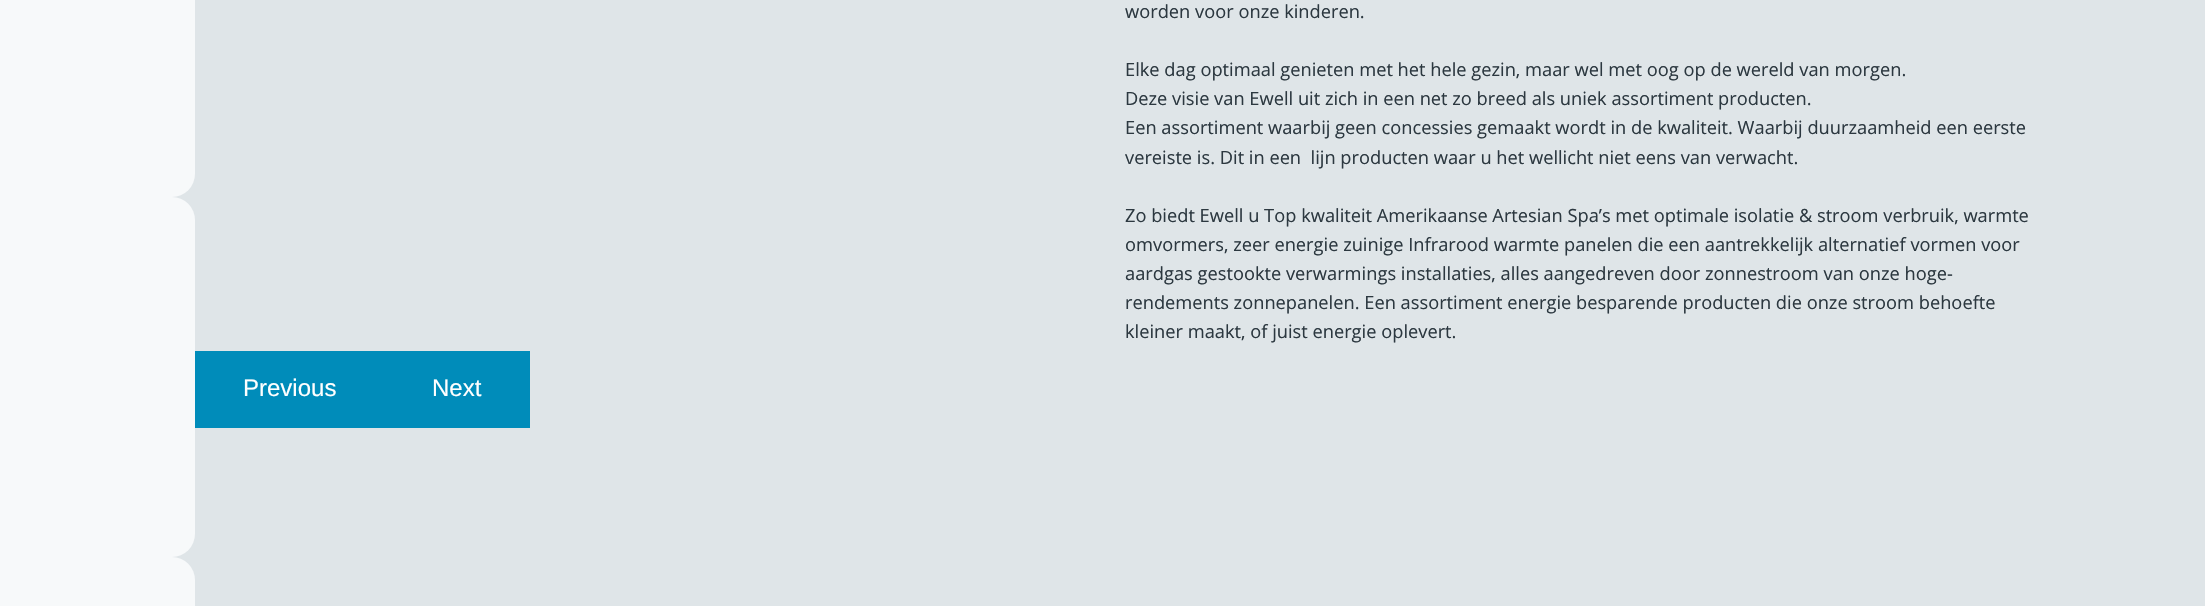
void draw(SkCanvas* canvas) {
	SkPaint fill;
	fill.setAntiAlias(true);
	auto makeFont = [&](const char* family, int weight, float size, bool italic = false) {
		SkFontStyle style(weight, SkFontStyle::kNormal_Width,
			italic ? SkFontStyle::kItalic_Slant : SkFontStyle::kUpright_Slant);
		SkFont result(fontMgr->matchFamilyStyle(family, style), size);
		result.setSubpixel(true);
		return result;
	};
	auto text = [&](const char* s, float x, float y, const SkFont& font) {
		canvas->drawString(s, x, y, font, fill);
	};
	auto box = [&](float l, float t, float r, float b) {
		canvas->drawRect(SkRect::MakeLTRB(l, t, r, b), fill);
	};
	auto roundBox = [&](float l, float t, float r, float b, float radius) {
		canvas->drawRoundRect(SkRect::MakeLTRB(l, t, r, b), radius, radius, fill);
	};
	canvas->clear(0xFFDFE5E8);
	fill.setColor(0xFFF7F9FA);
	roundBox(-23, -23, 195, 197, 23);
	roundBox(-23, 197, 195, 557, 23);
	roundBox(-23, 557, 195, 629, 23);
	fill.setColor(0xFF008CBA);
	box(195, 351, 530, 428);
	auto font1 = makeFont("Open Sans", 400, 18.25f);
	fill.setColor(0xFF2C3840);
	text("worden voor onze kinderen.", 1125, 18, font1);
	text("Elke dag optimaal genieten met het hele gezin, maar wel met oog op de wereld van morgen.", 1125, 76, font1);
	text("Deze visie van Ewell uit zich in een net zo breed als uniek assortiment producten.", 1125, 105, font1);
	text("Een assortiment waarbij geen concessies gemaakt wordt in de kwaliteit. Waarbij duurzaamheid een eerste", 1125, 134, font1);
	text("vereiste is. Dit in een  lijn producten waar u het wellicht niet eens van verwacht.", 1125, 164, font1);
	text("Zo biedt Ewell u Top kwaliteit Amerikaanse Artesian Spa’s met optimale isolatie & stroom verbruik, warmte", 1125, 222, font1);
	text("omvormers, zeer energie zuinige Infrarood warmte panelen die een aantrekkelijk alternatief vormen voor", 1125, 251, font1);
	text("aardgas gestookte verwarmings installaties, alles aangedreven door zonnestroom van onze hoge-", 1125, 280, font1);
	text("rendements zonnepanelen. Een assortiment energie besparende producten die onze stroom behoefte", 1125, 309, font1);
	text("kleiner maakt, of juist energie oplevert.", 1125, 338, font1);
	auto font2 = makeFont("Liberation Sans", 400, 24);
	fill.setColor(0xFFFFFFFF);
	text("Previous", 243, 396, font2);
	text("Next", 432, 396, font2);
}
